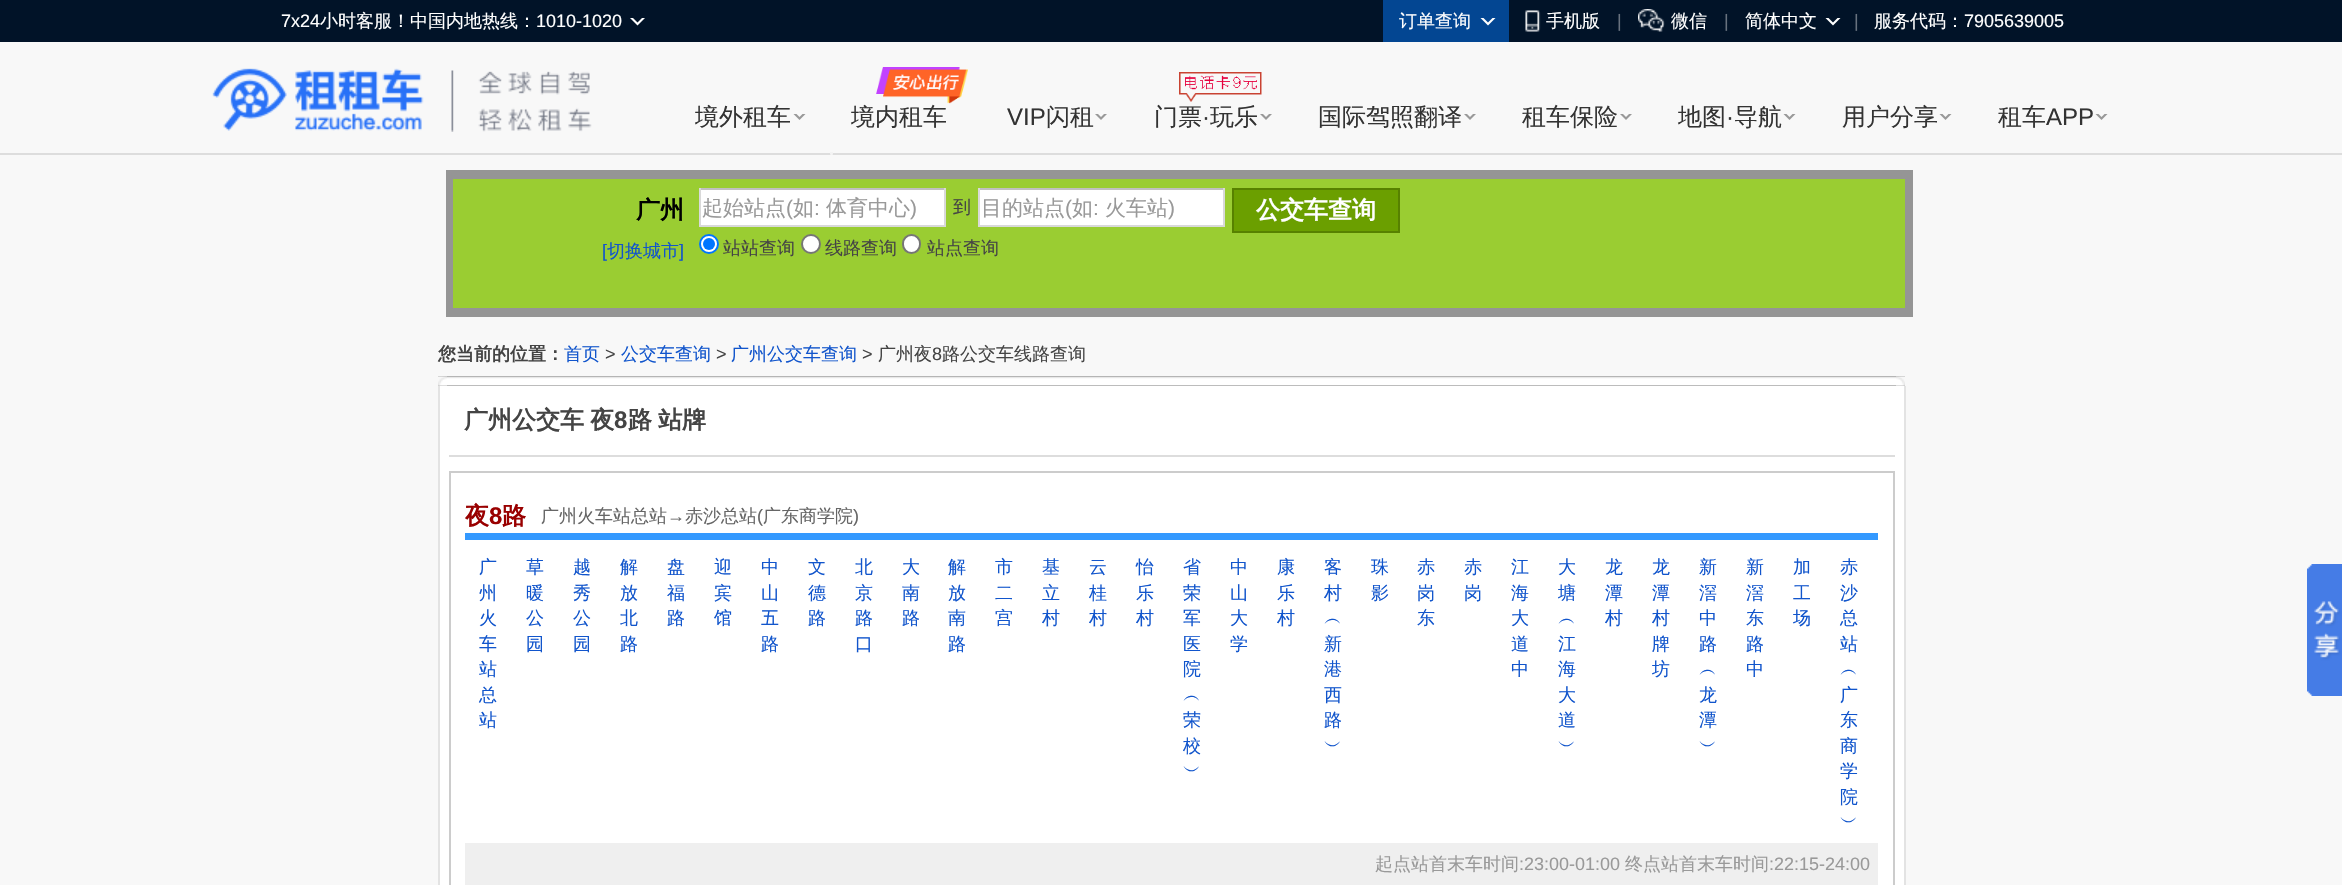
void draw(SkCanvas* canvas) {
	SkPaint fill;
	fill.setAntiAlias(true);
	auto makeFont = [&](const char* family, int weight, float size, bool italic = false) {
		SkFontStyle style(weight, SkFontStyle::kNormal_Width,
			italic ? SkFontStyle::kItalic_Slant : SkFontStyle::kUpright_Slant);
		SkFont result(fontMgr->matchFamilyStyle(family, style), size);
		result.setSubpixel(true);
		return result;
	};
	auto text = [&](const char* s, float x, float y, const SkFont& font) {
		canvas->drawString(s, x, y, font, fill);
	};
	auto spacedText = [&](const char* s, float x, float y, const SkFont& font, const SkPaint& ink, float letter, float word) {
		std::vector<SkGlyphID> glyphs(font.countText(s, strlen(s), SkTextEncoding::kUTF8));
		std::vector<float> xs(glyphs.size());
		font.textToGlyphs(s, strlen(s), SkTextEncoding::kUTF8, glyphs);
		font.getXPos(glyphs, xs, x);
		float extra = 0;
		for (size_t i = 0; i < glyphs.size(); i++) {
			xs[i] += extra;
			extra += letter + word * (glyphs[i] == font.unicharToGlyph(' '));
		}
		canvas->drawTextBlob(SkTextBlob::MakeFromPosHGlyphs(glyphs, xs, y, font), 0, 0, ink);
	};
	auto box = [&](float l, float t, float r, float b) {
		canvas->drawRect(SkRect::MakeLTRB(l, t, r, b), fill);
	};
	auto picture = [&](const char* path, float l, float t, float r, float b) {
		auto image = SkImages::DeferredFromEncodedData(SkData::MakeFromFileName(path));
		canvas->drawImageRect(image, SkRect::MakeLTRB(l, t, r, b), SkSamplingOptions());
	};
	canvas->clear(0xFFF8F8F8);
	fill.setColor(0xFFDDDDDD);
	box(0, 153, 2342, 155);
	fill.setColor(0xFF011328);
	box(0, 0, 2342, 42);
	fill.setColor(0xFFFFFFFF);
	canvas->drawPath(SkPathBuilder().moveTo(630, 18).lineTo(645, 18).lineTo(637.5f, 25.5f).close().detach(), fill);
	fill.setColor(0xFF011328);
	canvas->drawPath(SkPathBuilder().moveTo(630, 15).lineTo(645, 15).lineTo(637.5f, 22.5f).close().detach(), fill);
	fill.setColor(0xFF034692);
	box(1383, 0, 1509, 42);
	fill.setColor(0xFFFFFFFF);
	canvas->drawPath(SkPathBuilder().moveTo(1480.5f, 18).lineTo(1495.5f, 18).lineTo(1488, 25.5f).close().detach(), fill);
	fill.setColor(0xFF034692);
	canvas->drawPath(SkPathBuilder().moveTo(1480.5f, 15).lineTo(1495.5f, 15).lineTo(1488, 22.5f).close().detach(), fill);
	picture("image0.png", 1525, 10, 1541, 32);
	picture("image1.png", 1638, 9, 1665, 32);
	fill.setColor(0xFFFFFFFF);
	canvas->drawPath(SkPathBuilder().moveTo(1825.5f, 18).lineTo(1840.5f, 18).lineTo(1833, 25.5f).close().detach(), fill);
	fill.setColor(0xFF011328);
	canvas->drawPath(SkPathBuilder().moveTo(1825.5f, 15).lineTo(1840.5f, 15).lineTo(1833, 22.5f).close().detach(), fill);
	picture("image2.png", 212, 68, 424, 131);
	picture("image3.png", 451, 70, 592, 132);
	fill.setColor(0xFF999999);
	canvas->drawPath(SkPathBuilder().moveTo(793.5f, 114).lineTo(805.5f, 114).lineTo(799.5f, 120).close().detach(), fill);
	fill.setColor(0xFFF9F9F9);
	canvas->drawPath(SkPathBuilder().moveTo(793.5f, 111).lineTo(805.5f, 111).lineTo(799.5f, 117).close().detach(), fill);
	picture("image4.png", 876, 67, 968, 104);
	fill.setColor(0xFFF3F3F3);
	canvas->drawPath(SkPathBuilder().moveTo(830, 152).lineTo(833, 152).lineTo(833, 153.5f).cubicTo(833, 154.5f, 832.5f, 155, 831.5f, 155).cubicTo(830.5f, 155, 830, 154.5f, 830, 153.5f).close().detach(), fill);
	fill.setColor(0xFF999999);
	canvas->drawPath(SkPathBuilder().moveTo(1095, 114).lineTo(1107, 114).lineTo(1101, 120).close().detach(), fill);
	fill.setColor(0xFFF9F9F9);
	canvas->drawPath(SkPathBuilder().moveTo(1095, 111).lineTo(1107, 111).lineTo(1101, 117).close().detach(), fill);
	picture("image5.png", 1179, 72, 1262, 102);
	fill.setColor(0xFF999999);
	canvas->drawPath(SkPathBuilder().moveTo(1260, 114).lineTo(1272, 114).lineTo(1266, 120).close().detach(), fill);
	fill.setColor(0xFFF9F9F9);
	canvas->drawPath(SkPathBuilder().moveTo(1260, 111).lineTo(1272, 111).lineTo(1266, 117).close().detach(), fill);
	fill.setColor(0xFF999999);
	canvas->drawPath(SkPathBuilder().moveTo(1464, 114).lineTo(1476, 114).lineTo(1470, 120).close().detach(), fill);
	fill.setColor(0xFFF9F9F9);
	canvas->drawPath(SkPathBuilder().moveTo(1464, 111).lineTo(1476, 111).lineTo(1470, 117).close().detach(), fill);
	fill.setColor(0xFF999999);
	canvas->drawPath(SkPathBuilder().moveTo(1620, 114).lineTo(1632, 114).lineTo(1626, 120).close().detach(), fill);
	fill.setColor(0xFFF9F9F9);
	canvas->drawPath(SkPathBuilder().moveTo(1620, 111).lineTo(1632, 111).lineTo(1626, 117).close().detach(), fill);
	fill.setColor(0xFF999999);
	canvas->drawPath(SkPathBuilder().moveTo(1783.5f, 114).lineTo(1795.5f, 114).lineTo(1789.5f, 120).close().detach(), fill);
	fill.setColor(0xFFF9F9F9);
	canvas->drawPath(SkPathBuilder().moveTo(1783.5f, 111).lineTo(1795.5f, 111).lineTo(1789.5f, 117).close().detach(), fill);
	fill.setColor(0xFF999999);
	canvas->drawPath(SkPathBuilder().moveTo(1939.5f, 114).lineTo(1951.5f, 114).lineTo(1945.5f, 120).close().detach(), fill);
	fill.setColor(0xFFF9F9F9);
	canvas->drawPath(SkPathBuilder().moveTo(1939.5f, 111).lineTo(1951.5f, 111).lineTo(1945.5f, 117).close().detach(), fill);
	fill.setColor(0xFF999999);
	canvas->drawPath(SkPathBuilder().moveTo(2095.5f, 114).lineTo(2107.5f, 114).lineTo(2101.5f, 120).close().detach(), fill);
	fill.setColor(0xFFF9F9F9);
	canvas->drawPath(SkPathBuilder().moveTo(2095.5f, 111).lineTo(2107.5f, 111).lineTo(2101.5f, 117).close().detach(), fill);
	fill.setColor(0xFF959595);
	box(446, 170, 1913, 317);
	fill.setColor(0xFF9ACD32);
	box(453, 179, 1905, 308);
	fill.setColor(0xFFFFFFFF);
	box(701, 190, 944, 225);
	fill.setColor(0xFFC0C0C0);
	box(699, 188, 945, 190);
	fill.setColor(0xFFD9D9D9);
	box(944, 188, 946, 227);
	box(699, 225, 945, 227);
	box(699, 188, 701, 227);
	fill.setColor(0xFFFFFFFF);
	box(980, 190, 1223, 225);
	fill.setColor(0xFFC0C0C0);
	box(978, 188, 1224, 190);
	fill.setColor(0xFFD9D9D9);
	box(1223, 188, 1225, 227);
	box(978, 225, 1224, 227);
	box(978, 188, 980, 227);
	fill.setColor(0xFF6B9F00);
	canvas->drawRect(SkRect::MakeLTRB(1233, 189, 1399, 232), fill);
	fill.setStyle(SkPaint::kStroke_Style);
	fill.setStrokeWidth(2);
	fill.setColor(0xFF578100);
	canvas->drawRect(SkRect::MakeLTRB(1233, 189, 1399, 232), fill);
	fill.setStyle(SkPaint::kFill_Style);
	fill.setColor(0xFFFFFFFF);
	canvas->drawCircle(709, 244, 9, fill);
	fill.setStyle(SkPaint::kStroke_Style);
	fill.setColor(0xFF0075FF);
	canvas->drawCircle(709, 244, 9, fill);
	fill.setStyle(SkPaint::kFill_Style);
	canvas->drawCircle(709, 244, 6, fill);
	fill.setColor(0xFFFFFFFF);
	canvas->drawCircle(811, 244, 9, fill);
	fill.setStyle(SkPaint::kStroke_Style);
	fill.setColor(0xFF767676);
	canvas->drawCircle(811, 244, 9, fill);
	fill.setStyle(SkPaint::kFill_Style);
	fill.setColor(0xFFFFFFFF);
	canvas->drawRoundRect(SkRect::MakeLTRB(903, 235, 920, 253), 8.5f, 8.5f, fill);
	fill.setStyle(SkPaint::kStroke_Style);
	fill.setColor(0xFF767676);
	canvas->drawRoundRect(SkRect::MakeLTRB(903, 235, 920, 253), 8.5f, 8.5f, fill);
	picture("image6.png", 438, 376, 1905, 386);
	picture("image7.png", 438, 376, 447, 386);
	picture("image8.png", 1896, 376, 1905, 386);
	fill.setStyle(SkPaint::kFill_Style);
	fill.setColor(0xFFFFFFFF);
	box(440, 386, 1904, 885);
	fill.setColor(0xFFE3E3E3);
	box(1904, 386, 1906, 885);
	box(438, 386, 440, 885);
	fill.setColor(0xFFDDDDDD);
	box(449, 455, 1895, 457);
	fill.setStyle(SkPaint::kStroke_Style);
	fill.setColor(0xFFCCCCCC);
	canvas->drawRect(SkRect::MakeLTRB(450, 472, 1894, 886), fill);
	fill.setStyle(SkPaint::kFill_Style);
	fill.setColor(0xFF3399FF);
	box(465, 533, 1878, 540);
	fill.setColor(0xFFEFEFEF);
	box(465, 843, 1878, 885);
	picture("image9.png", 2307, 564, 2342, 696);
	auto font1 = makeFont("Liberation Sans", 400, 18);
	fill.setColor(0xFFFFFFFF);
	text("7x24", 281, 27, font1);
	auto font2 = makeFont("WenQuanYi Zen Hei", 500, 18);
	text("小时客服！中国内地热线：", 320, 27, font2);
	text("1010-1020", 536, 27, font1);
	text("订单查询", 1399, 27, font2);
	text("手机版", 1546, 27, font2);
	fill.setColor(0xFF67717E);
	text("|", 1617, 27, font1);
	fill.setColor(0xFFFFFFFF);
	text("微信", 1671, 27, font2);
	fill.setColor(0xFF67717E);
	text("|", 1724, 27, font1);
	fill.setColor(0xFFFFFFFF);
	text("简体中文", 1745, 27, font2);
	fill.setColor(0xFF67717E);
	text("|", 1854, 27, font1);
	fill.setColor(0xFFFFFFFF);
	text("服务代码：", 1874, 27, font2);
	text("7905639005", 1964, 27, font1);
	auto font3 = makeFont("WenQuanYi Zen Hei", 500, 24);
	fill.setColor(0xFF333333);
	text("境外租车", 695, 125, font3);
	text("境内租车", 851, 125, font3);
	auto font4 = makeFont("Liberation Sans", 400, 24);
	text("VIP", 1007, 125, font4);
	text("闪租", 1046, 125, font3);
	text("门票", 1154, 125, font3);
	text("·", 1202, 125, font4);
	text("玩乐", 1210, 125, font3);
	text("国际驾照翻译", 1318, 125, font3);
	text("租车保险", 1522, 125, font3);
	text("地图", 1678, 125, font3);
	text("·", 1726, 125, font4);
	text("导航", 1734, 125, font3);
	text("用户分享", 1842, 125, font3);
	text("租车", 1998, 125, font3);
	text("APP", 2046, 125, font4);
	auto font5 = makeFont("WenQuanYi Zen Hei", 700, 24);
	fill.setColor(0xFF000000);
	text("广州", 636, 218, font5);
	fill.setColor(0xFF1155CC);
	text("[", 602, 257, font1);
	text("切换城市", 607, 257, font2);
	text("]", 679, 257, font1);
	auto font6 = makeFont("WenQuanYi Zen Hei", 500, 21);
	fill.setColor(0xFF999999);
	text("起始站点", 702, 215, font6);
	auto font7 = makeFont("Liberation Sans", 400, 21);
	text("(", 786, 215, font7);
	text("如", 793, 215, font6);
	text(":", 814, 215, font7);
	text("体育中心", 826, 215, font6);
	text(")", 910, 215, font7);
	fill.setColor(0xFF444444);
	text("到", 953, 213, font2);
	fill.setColor(0xFF999999);
	text("目的站点", 981, 215, font6);
	text("(", 1065, 215, font7);
	text("如", 1072, 215, font6);
	text(":", 1093, 215, font7);
	text("火车站", 1105, 215, font6);
	text(")", 1168, 215, font7);
	fill.setColor(0xFFFFFFFF);
	text("公交车查询", 1256, 218, font5);
	fill.setColor(0xFF444444);
	text("站站查询", 723, 254, font2);
	text("线路查询", 825, 254, font2);
	text("站点查询", 927, 254, font2);
	auto font8 = makeFont("WenQuanYi Zen Hei", 700, 18);
	text("您当前的位置：", 438, 360, font8);
	fill.setColor(0xFF1155CC);
	text("首页", 564, 360, font2);
	fill.setColor(0xFF444444);
	text(">", 605, 360, font1);
	fill.setColor(0xFF1155CC);
	text("公交车查询", 621, 360, font2);
	fill.setColor(0xFF444444);
	text(">", 716, 360, font1);
	fill.setColor(0xFF1155CC);
	text("广州公交车查询", 731, 360, font2);
	fill.setColor(0xFF444444);
	text(">", 862, 360, font1);
	text("广州夜", 878, 360, font2);
	text("8", 932, 360, font1);
	text("路公交车线路查询", 942, 360, font2);
	spacedText("广州公交车 夜", 464, 428, font5, fill, 0, -1);
	auto font9 = makeFont("Liberation Sans", 700, 24);
	text("8", 614, 428, font9);
	spacedText("路 站牌", 628, 428, font5, fill, 0, -1);
	fill.setColor(0xFF990000);
	text("夜", 465, 524, font5);
	text("8", 489, 524, font9);
	text("路", 502, 524, font5);
	fill.setColor(0xFF666666);
	text("广州火车站总站", 541, 522, font2);
	text("→", 667, 522, font1);
	text("赤沙总站", 685, 522, font2);
	text("(", 757, 522, font1);
	text("广东商学院", 763, 522, font2);
	text(")", 853, 522, font1);
	fill.setColor(0xFF1155CC);
	text("广", 479, 573, font2);
	text("州", 479, 599, font2);
	text("火", 479, 624, font2);
	text("车", 479, 650, font2);
	text("站", 479, 675, font2);
	text("总", 479, 701, font2);
	text("站", 479, 726, font2);
	text("草", 526, 573, font2);
	text("暖", 526, 599, font2);
	text("公", 526, 624, font2);
	text("园", 526, 650, font2);
	text("越", 573, 573, font2);
	text("秀", 573, 599, font2);
	text("公", 573, 624, font2);
	text("园", 573, 650, font2);
	text("解", 620, 573, font2);
	text("放", 620, 599, font2);
	text("北", 620, 624, font2);
	text("路", 620, 650, font2);
	text("盘", 667, 573, font2);
	text("福", 667, 599, font2);
	text("路", 667, 624, font2);
	text("迎", 714, 573, font2);
	text("宾", 714, 599, font2);
	text("馆", 714, 624, font2);
	text("中", 761, 573, font2);
	text("山", 761, 599, font2);
	text("五", 761, 624, font2);
	text("路", 761, 650, font2);
	text("文", 808, 573, font2);
	text("德", 808, 599, font2);
	text("路", 808, 624, font2);
	text("北", 855, 573, font2);
	text("京", 855, 599, font2);
	text("路", 855, 624, font2);
	text("口", 855, 650, font2);
	text("大", 902, 573, font2);
	text("南", 902, 599, font2);
	text("路", 902, 624, font2);
	text("解", 948, 573, font2);
	text("放", 948, 599, font2);
	text("南", 948, 624, font2);
	text("路", 948, 650, font2);
	text("市", 995, 573, font2);
	text("二", 995, 599, font2);
	text("宫", 995, 624, font2);
	text("基", 1042, 573, font2);
	text("立", 1042, 599, font2);
	text("村", 1042, 624, font2);
	text("云", 1089, 573, font2);
	text("桂", 1089, 599, font2);
	text("村", 1089, 624, font2);
	text("怡", 1136, 573, font2);
	text("乐", 1136, 599, font2);
	text("村", 1136, 624, font2);
	text("省", 1183, 573, font2);
	text("荣", 1183, 599, font2);
	text("军", 1183, 624, font2);
	text("医", 1183, 650, font2);
	text("院", 1183, 675, font2);
	text("︵", 1183, 701, font2);
	text("荣", 1183, 726, font2);
	text("校", 1183, 752, font2);
	text("︶", 1183, 777, font2);
	text("中", 1230, 573, font2);
	text("山", 1230, 599, font2);
	text("大", 1230, 624, font2);
	text("学", 1230, 650, font2);
	text("康", 1277, 573, font2);
	text("乐", 1277, 599, font2);
	text("村", 1277, 624, font2);
	text("客", 1324, 573, font2);
	text("村", 1324, 599, font2);
	text("︵", 1324, 624, font2);
	text("新", 1324, 650, font2);
	text("港", 1324, 675, font2);
	text("西", 1324, 701, font2);
	text("路", 1324, 726, font2);
	text("︶", 1324, 752, font2);
	text("珠", 1371, 573, font2);
	text("影", 1371, 599, font2);
	text("赤", 1417, 573, font2);
	text("岗", 1417, 599, font2);
	text("东", 1417, 624, font2);
	text("赤", 1464, 573, font2);
	text("岗", 1464, 599, font2);
	text("江", 1511, 573, font2);
	text("海", 1511, 599, font2);
	text("大", 1511, 624, font2);
	text("道", 1511, 650, font2);
	text("中", 1511, 675, font2);
	text("大", 1558, 573, font2);
	text("塘", 1558, 599, font2);
	text("︵", 1558, 624, font2);
	text("江", 1558, 650, font2);
	text("海", 1558, 675, font2);
	text("大", 1558, 701, font2);
	text("道", 1558, 726, font2);
	text("︶", 1558, 752, font2);
	text("龙", 1605, 573, font2);
	text("潭", 1605, 599, font2);
	text("村", 1605, 624, font2);
	text("龙", 1652, 573, font2);
	text("潭", 1652, 599, font2);
	text("村", 1652, 624, font2);
	text("牌", 1652, 650, font2);
	text("坊", 1652, 675, font2);
	text("新", 1699, 573, font2);
	text("滘", 1699, 599, font2);
	text("中", 1699, 624, font2);
	text("路", 1699, 650, font2);
	text("︵", 1699, 675, font2);
	text("龙", 1699, 701, font2);
	text("潭", 1699, 726, font2);
	text("︶", 1699, 752, font2);
	text("新", 1746, 573, font2);
	text("滘", 1746, 599, font2);
	text("东", 1746, 624, font2);
	text("路", 1746, 650, font2);
	text("中", 1746, 675, font2);
	text("加", 1793, 573, font2);
	text("工", 1793, 599, font2);
	text("场", 1793, 624, font2);
	text("赤", 1840, 573, font2);
	text("沙", 1840, 599, font2);
	text("总", 1840, 624, font2);
	text("站", 1840, 650, font2);
	text("︵", 1840, 675, font2);
	text("广", 1840, 701, font2);
	text("东", 1840, 726, font2);
	text("商", 1840, 752, font2);
	text("学", 1840, 777, font2);
	text("院", 1840, 803, font2);
	text("︶", 1840, 828, font2);
	fill.setColor(0xFF999999);
	text("起点站首末车时间", 1375, 870, font2);
	text(":23:00-01:00", 1519, 870, font1);
	text("终点站首末车时间", 1625, 870, font2);
	text(":22:15-24:00", 1769, 870, font1);
}
